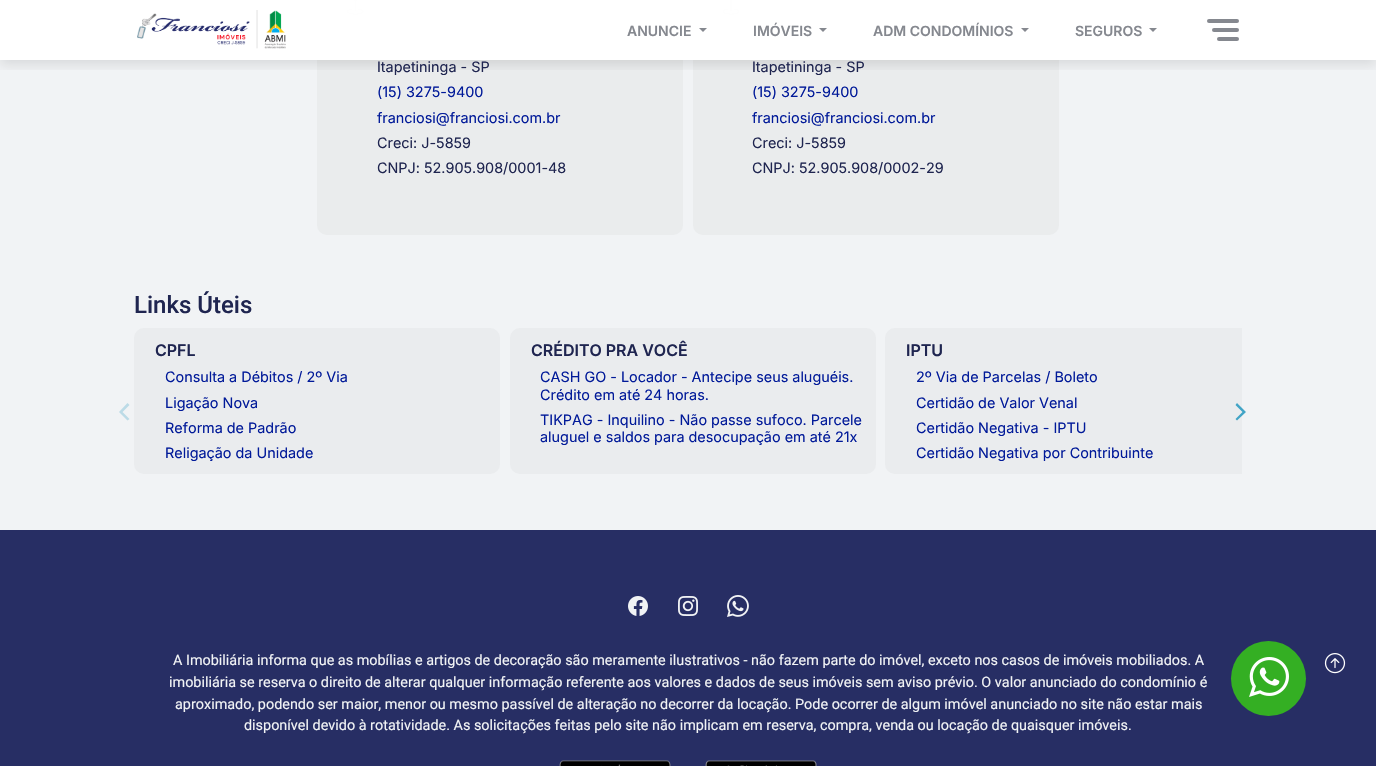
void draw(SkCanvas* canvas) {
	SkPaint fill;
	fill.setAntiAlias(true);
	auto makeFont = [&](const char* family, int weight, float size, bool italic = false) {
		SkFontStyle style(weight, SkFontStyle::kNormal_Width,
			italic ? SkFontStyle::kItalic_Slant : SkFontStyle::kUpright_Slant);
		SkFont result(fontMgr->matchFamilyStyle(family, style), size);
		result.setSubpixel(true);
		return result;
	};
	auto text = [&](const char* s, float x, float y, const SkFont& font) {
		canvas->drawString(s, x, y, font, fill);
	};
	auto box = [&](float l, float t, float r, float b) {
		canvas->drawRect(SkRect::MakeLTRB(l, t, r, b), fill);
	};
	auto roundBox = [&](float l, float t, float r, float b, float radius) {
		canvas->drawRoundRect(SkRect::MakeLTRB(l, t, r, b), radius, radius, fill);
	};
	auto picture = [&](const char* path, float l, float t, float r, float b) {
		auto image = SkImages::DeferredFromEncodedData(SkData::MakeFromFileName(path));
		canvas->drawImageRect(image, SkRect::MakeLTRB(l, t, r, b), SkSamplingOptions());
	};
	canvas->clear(0xFFF1F3F5);
	fill.setColor(0xFFFFFFFF);
	box(0, 0, 1376, 60);
	fill.setColor(0xFFEAECED);
	roundBox(317, -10, 683, 235, 10);
	fill.setColor(0xFFFFFFFF);
	box(317, 0, 683, 60);
	picture("image1.png", 346, 0, 365, 15);
	fill.setColor(0xFFEAECED);
	roundBox(693, -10, 1059, 235, 10);
	fill.setColor(0xFFFFFFFF);
	box(693, 0, 1059, 60);
	picture("image2.png", 722, 0, 740, 15);
	canvas->save();
	canvas->clipRect(SkRect::MakeLTRB(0, 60, 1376, 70));
	fill.setColor(0x1A000000);
	fill.setMaskFilter(SkMaskFilter::MakeBlur(kNormal_SkBlurStyle, 5.5f));
	canvas->drawRect(SkRect::MakeLTRB(0, 5, 1376, 65), fill);
	fill.setMaskFilter(nullptr);
	canvas->restore();
	picture("image0.png", 137, 10, 286, 49);
	fill.setColor(0xFF85888F);
	canvas->drawPath(SkPathBuilder().moveTo(699, 28).lineTo(707, 28).lineTo(703, 32).close().detach(), fill);
	canvas->drawPath(SkPathBuilder().moveTo(819, 28).lineTo(827, 28).lineTo(823, 32).close().detach(), fill);
	canvas->drawPath(SkPathBuilder().moveTo(1021, 28).lineTo(1029, 28).lineTo(1025, 32).close().detach(), fill);
	canvas->drawPath(SkPathBuilder().moveTo(1149, 28).lineTo(1157, 28).lineTo(1153, 32).close().detach(), fill);
	roundBox(1207, 19, 1239, 23, 2);
	roundBox(1212, 28, 1239, 32, 2);
	roundBox(1217, 37, 1239, 41, 2);
	fill.setColor(0xFFBCDBE7);
	canvas->drawPath(SkPathBuilder().moveTo(119, 412).lineTo(127.5f, 420.5f).lineTo(129.5f, 419).lineTo(122.5f, 412).lineTo(129.5f, 405).lineTo(127.5f, 403).close().detach(), fill);
	fill.setColor(0xFFEAECEE);
	roundBox(134, 328, 500, 474, 10);
	roundBox(510, 328, 876, 474, 10);
	canvas->save();
	canvas->clipRect(SkRect::MakeLTRB(134, 328, 1242, 494));
	roundBox(885, 328, 1251, 474, 10);
	canvas->restore();
	fill.setColor(0xFF41A4C6);
	canvas->drawPath(SkPathBuilder().moveTo(1246, 412).lineTo(1237, 403).lineTo(1235.5f, 405).lineTo(1242.5f, 412).lineTo(1235.5f, 419).lineTo(1237, 420.5f).close().detach(), fill);
	fill.setColor(0xFF272E64);
	box(0, 530, 1376, 766);
	picture("image3.png", 628, 596, 648, 616);
	picture("image4.png", 678, 596, 698, 616);
	picture("image5.png", 727, 595, 749, 617);
	picture("image6.png", 559, 760, 671, 766);
	picture("image7.png", 705, 760, 817, 766);
	fill.setColor(0xFF34AF23);
	canvas->drawCircle(1268.5f, 678.5f, 37.5f, fill);
	picture("image8.png", 1249, 657, 1289, 697);
	picture("image9.png", 1324, 653, 1346, 674);
	auto font1 = makeFont("Inter", 600, 14);
	fill.setColor(0xFF85888F);
	text("ANUNCIE", 627, 36, font1);
	text("IMÓVEIS", 753, 36, font1);
	text("ADM CONDOMÍNIOS", 873, 36, font1);
	text("SEGUROS", 1075, 36, font1);
	auto font2 = makeFont("Inter", 400, 14.4f);
	fill.setColor(0xFF1F2550);
	text("Itapetininga - SP", 377, 72, font2);
	fill.setColor(0xFF011A99);
	text("(15) 3275-9400", 377, 97, font2);
	text("franciosi@franciosi.com.br", 377, 123, font2);
	fill.setColor(0xFF1F2550);
	text("Creci: J-5859", 377, 148, font2);
	text("CNPJ: 52.905.908/0001-48", 377, 173, font2);
	text("Itapetininga - SP", 752, 72, font2);
	fill.setColor(0xFF011A99);
	text("(15) 3275-9400", 752, 97, font2);
	text("franciosi@franciosi.com.br", 752, 123, font2);
	fill.setColor(0xFF1F2550);
	text("Creci: J-5859", 752, 148, font2);
	text("CNPJ: 52.905.908/0002-29", 752, 173, font2);
	auto font3 = makeFont("Roboto", 500, 24);
	text("Links Úteis", 134, 313, font3);
	auto font4 = makeFont("Inter", 600, 16);
	text("CPFL", 155, 356, font4);
	fill.setColor(0xFF011A99);
	text("Consulta a Débitos / 2º Via", 165, 382, font2);
	text("Ligação Nova", 165, 408, font2);
	text("Reforma de Padrão", 165, 433, font2);
	text("Religação da Unidade", 165, 458, font2);
	fill.setColor(0xFF1F2550);
	text("CRÉDITO PRA VOCÊ", 531, 356, font4);
	fill.setColor(0xFF011A99);
	text("CASH GO - Locador - Antecipe seus aluguéis.", 540, 382, font2);
	text("Crédito em até 24 horas.", 540, 400, font2);
	text("TIKPAG - Inquilino - Não passe sufoco. Parcele", 540, 425, font2);
	text("aluguel e saldos para desocupação em até 21x", 540, 442, font2);
	fill.setColor(0xFF1F2550);
	text("IPTU", 906, 356, font4);
	fill.setColor(0xFF011A99);
	text("2º Via de Parcelas / Boleto", 916, 382, font2);
	text("Certidão de Valor Venal", 916, 408, font2);
	text("Certidão Negativa - IPTU", 916, 433, font2);
	text("Certidão Negativa por Contribuinte", 916, 458, font2);
	auto font5 = makeFont("Roboto", 400, 14.4f);
	fill.setColor(0xFFF1F3F5);
	text("A Imobiliária informa que as mobílias e artigos de decoração são meramente ilustrativos - não fazem parte do imóvel, exceto nos casos de imóveis mobiliados. A", 173, 665, font5);
	text("imobiliária se reserva o direito de alterar qualquer informação referente aos valores e dados de seus imóveis sem aviso prévio. O valor anunciado do condomínio é", 169, 687, font5);
	text("aproximado, podendo ser maior, menor ou mesmo passível de alteração no decorrer da locação. Pode ocorrer de algum imóvel anunciado no site não estar mais", 175, 709, font5);
	text("disponível devido à rotatividade. As solicitações feitas pelo site não implicam em reserva, compra, venda ou locação de quaisquer imóveis.", 244, 730, font5);
}
